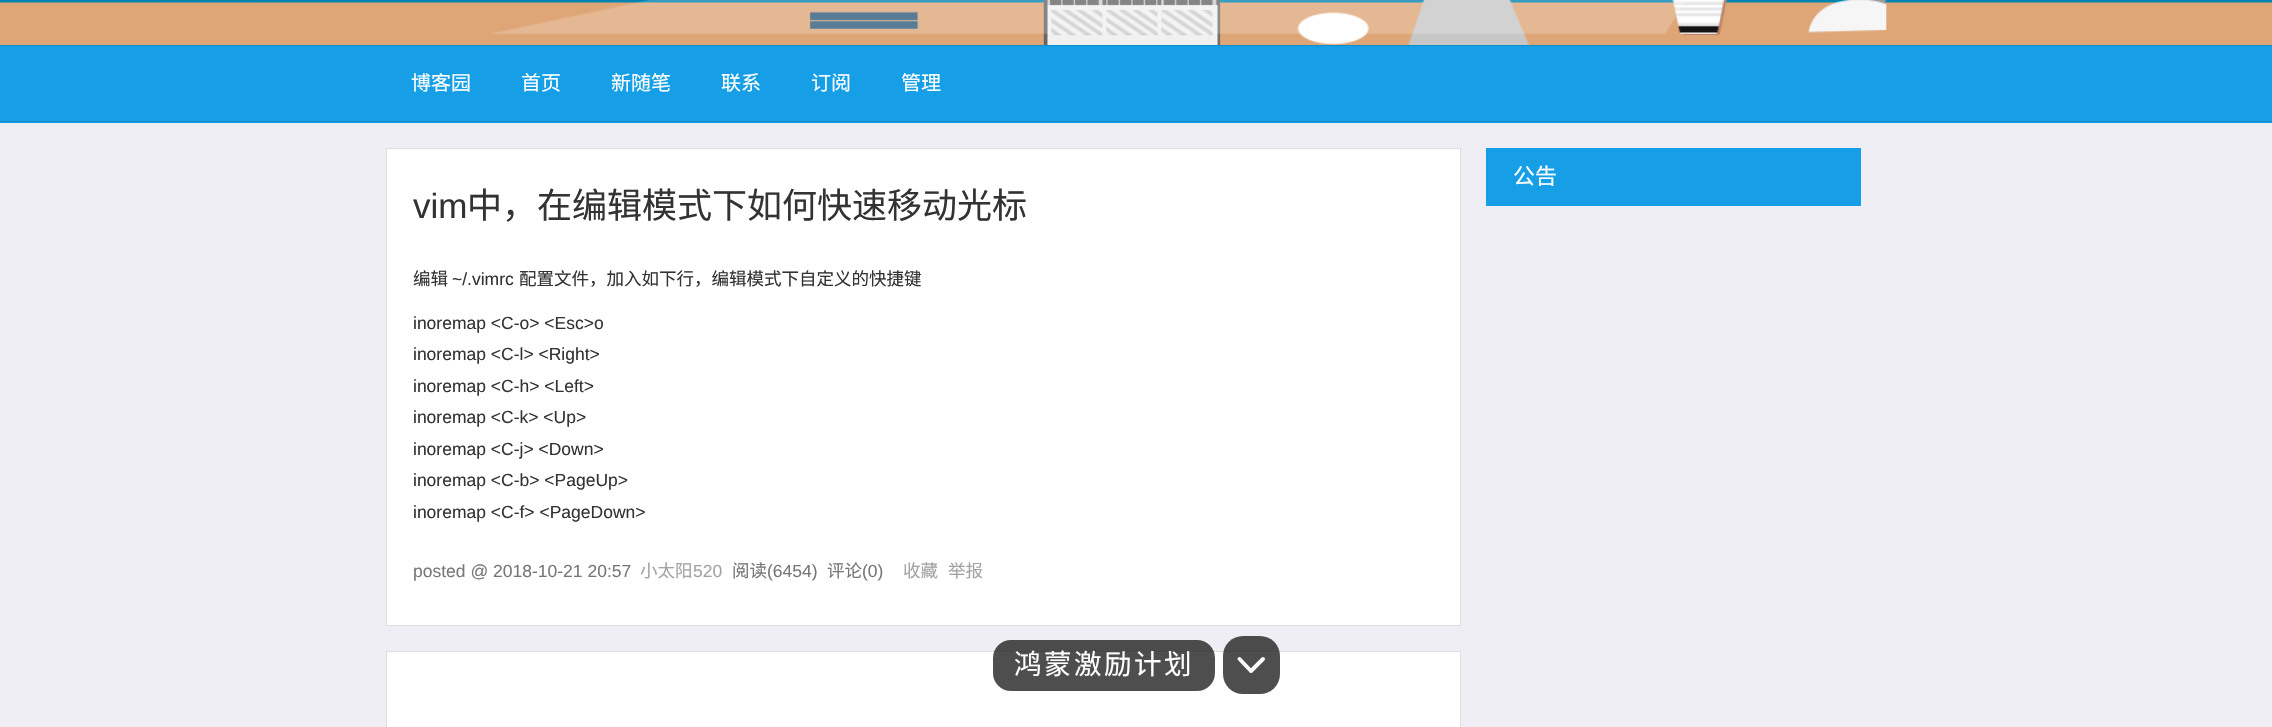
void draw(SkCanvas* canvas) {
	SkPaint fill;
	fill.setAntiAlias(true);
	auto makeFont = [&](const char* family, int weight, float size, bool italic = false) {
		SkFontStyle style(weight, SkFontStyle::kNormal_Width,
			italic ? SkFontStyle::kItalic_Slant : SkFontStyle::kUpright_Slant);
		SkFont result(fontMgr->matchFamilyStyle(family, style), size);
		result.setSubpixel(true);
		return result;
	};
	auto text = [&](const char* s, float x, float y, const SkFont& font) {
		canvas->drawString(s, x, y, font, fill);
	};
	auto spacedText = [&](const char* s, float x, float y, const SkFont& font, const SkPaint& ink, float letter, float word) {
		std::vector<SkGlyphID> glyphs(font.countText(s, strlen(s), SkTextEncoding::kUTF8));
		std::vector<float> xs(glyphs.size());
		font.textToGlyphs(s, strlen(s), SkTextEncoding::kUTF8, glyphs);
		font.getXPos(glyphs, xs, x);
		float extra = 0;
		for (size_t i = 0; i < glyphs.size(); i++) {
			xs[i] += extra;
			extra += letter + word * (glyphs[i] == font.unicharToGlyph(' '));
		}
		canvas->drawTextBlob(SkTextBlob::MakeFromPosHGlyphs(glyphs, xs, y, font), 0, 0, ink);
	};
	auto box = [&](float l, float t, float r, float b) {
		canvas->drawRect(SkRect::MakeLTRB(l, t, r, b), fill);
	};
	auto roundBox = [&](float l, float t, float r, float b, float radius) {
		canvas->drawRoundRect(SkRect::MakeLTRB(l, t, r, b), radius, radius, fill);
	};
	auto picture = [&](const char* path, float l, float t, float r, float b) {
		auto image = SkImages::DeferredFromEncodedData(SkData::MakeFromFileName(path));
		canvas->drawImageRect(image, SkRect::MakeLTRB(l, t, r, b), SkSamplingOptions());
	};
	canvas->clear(0xFFF0EEF5);
	picture("image0.png", 0, 0, 2272, 45);
	picture("image1.png", 491, 0, 1887, 45);
	fill.setColor(0xFF169FE6);
	box(0, 46, 2272, 123);
	fill.setColor(0xFF138CCA);
	box(0, 45, 2272, 46);
	box(0, 121, 2272, 122);
	fill.setColor(0xFF169FE6);
	box(1486, 148, 1861, 206);
	fill.setColor(0xFFFFFFFF);
	canvas->drawRect(SkRect::MakeLTRB(386.5f, 148.5f, 1460.5f, 625.5f), fill);
	fill.setStyle(SkPaint::kStroke_Style);
	fill.setStrokeWidth(1);
	fill.setColor(0xFFDEDEDE);
	canvas->drawRect(SkRect::MakeLTRB(386.5f, 148.5f, 1460.5f, 625.5f), fill);
	fill.setStyle(SkPaint::kFill_Style);
	fill.setColor(0xFFFFFFFF);
	canvas->drawRect(SkRect::MakeLTRB(386.5f, 651.5f, 1460.5f, 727.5f), fill);
	fill.setStyle(SkPaint::kStroke_Style);
	fill.setColor(0xFFDEDEDE);
	canvas->drawRect(SkRect::MakeLTRB(386.5f, 651.5f, 1460.5f, 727.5f), fill);
	fill.setStyle(SkPaint::kFill_Style);
	fill.setColor(0xCC222222);
	roundBox(993, 640, 1215, 691, 18);
	roundBox(1223, 636, 1280, 694, 20);
	fill.setStyle(SkPaint::kStroke_Style);
	fill.setStrokeWidth(3.9f);
	fill.setStrokeCap(SkPaint::kRound_Cap);
	fill.setStrokeJoin(SkPaint::kRound_Join);
	fill.setColor(0xFFFBFBFB);
	canvas->drawPath(SkPathBuilder().moveTo(1263, 659).lineTo(1251, 671).lineTo(1239.5f, 659).detach(), fill);
	auto font1 = makeFont("Noto Sans CJK SC", 400, 20);
	fill.setStyle(SkPaint::kFill_Style);
	fill.setColor(0xFFFFFFFF);
	text("博客园", 411, 90, font1);
	text("首页", 521, 90, font1);
	text("新随笔", 611, 90, font1);
	text("联系", 721, 90, font1);
	text("订阅", 811, 90, font1);
	text("管理", 901, 90, font1);
	auto font2 = makeFont("Noto Sans CJK SC", 400, 22);
	text("公告", 1513, 184, font2);
	auto font3 = makeFont("Liberation Sans", 400, 35);
	fill.setColor(0xFF333333);
	text("vim", 413, 218, font3);
	auto font4 = makeFont("Noto Sans CJK SC", 400, 35);
	text("中，在编辑模式下如何快速移动光标", 467, 218, font4);
	auto font5 = makeFont("Noto Sans CJK SC", 400, 17.5f);
	text("编辑", 413, 285, font5);
	auto font6 = makeFont("Liberation Sans", 400, 17.5f);
	text("~/.vimrc", 452, 285, font6);
	text("配置文件，加入如下行，编辑模式下自定义的快捷键", 519, 285, font5);
	text("inoremap <C-o> <Esc>o", 413, 329, font6);
	text("inoremap <C-l> <Right>", 413, 360, font6);
	text("inoremap <C-h> <Left>", 413, 392, font6);
	text("inoremap <C-k> <Up>", 413, 423, font6);
	text("inoremap <C-j> <Down>", 413, 455, font6);
	text("inoremap <C-b> <PageUp>", 413, 486, font6);
	text("inoremap <C-f> <PageDown>", 413, 518, font6);
	fill.setColor(0xFF777777);
	text("posted @ 2018-10-21 20:57", 413, 577, font6);
	fill.setColor(0xFFA3A3A3);
	text("小太阳", 640, 577, font5);
	text("520", 693, 577, font6);
	fill.setColor(0xFF777777);
	text("阅读", 732, 577, font5);
	text("(6454)", 767, 577, font6);
	text("评论", 827, 577, font5);
	text("(0)", 862, 577, font6);
	fill.setColor(0xFFA3A3A3);
	text("收藏", 903, 577, font5);
	text("举报", 948, 577, font5);
	auto font7 = makeFont("Noto Sans CJK SC", 400, 27.5f);
	fill.setColor(0xFFFFFFFF);
	spacedText("鸿蒙激励计划", 1014, 674, font7, fill, 2.5f, 0);
}
